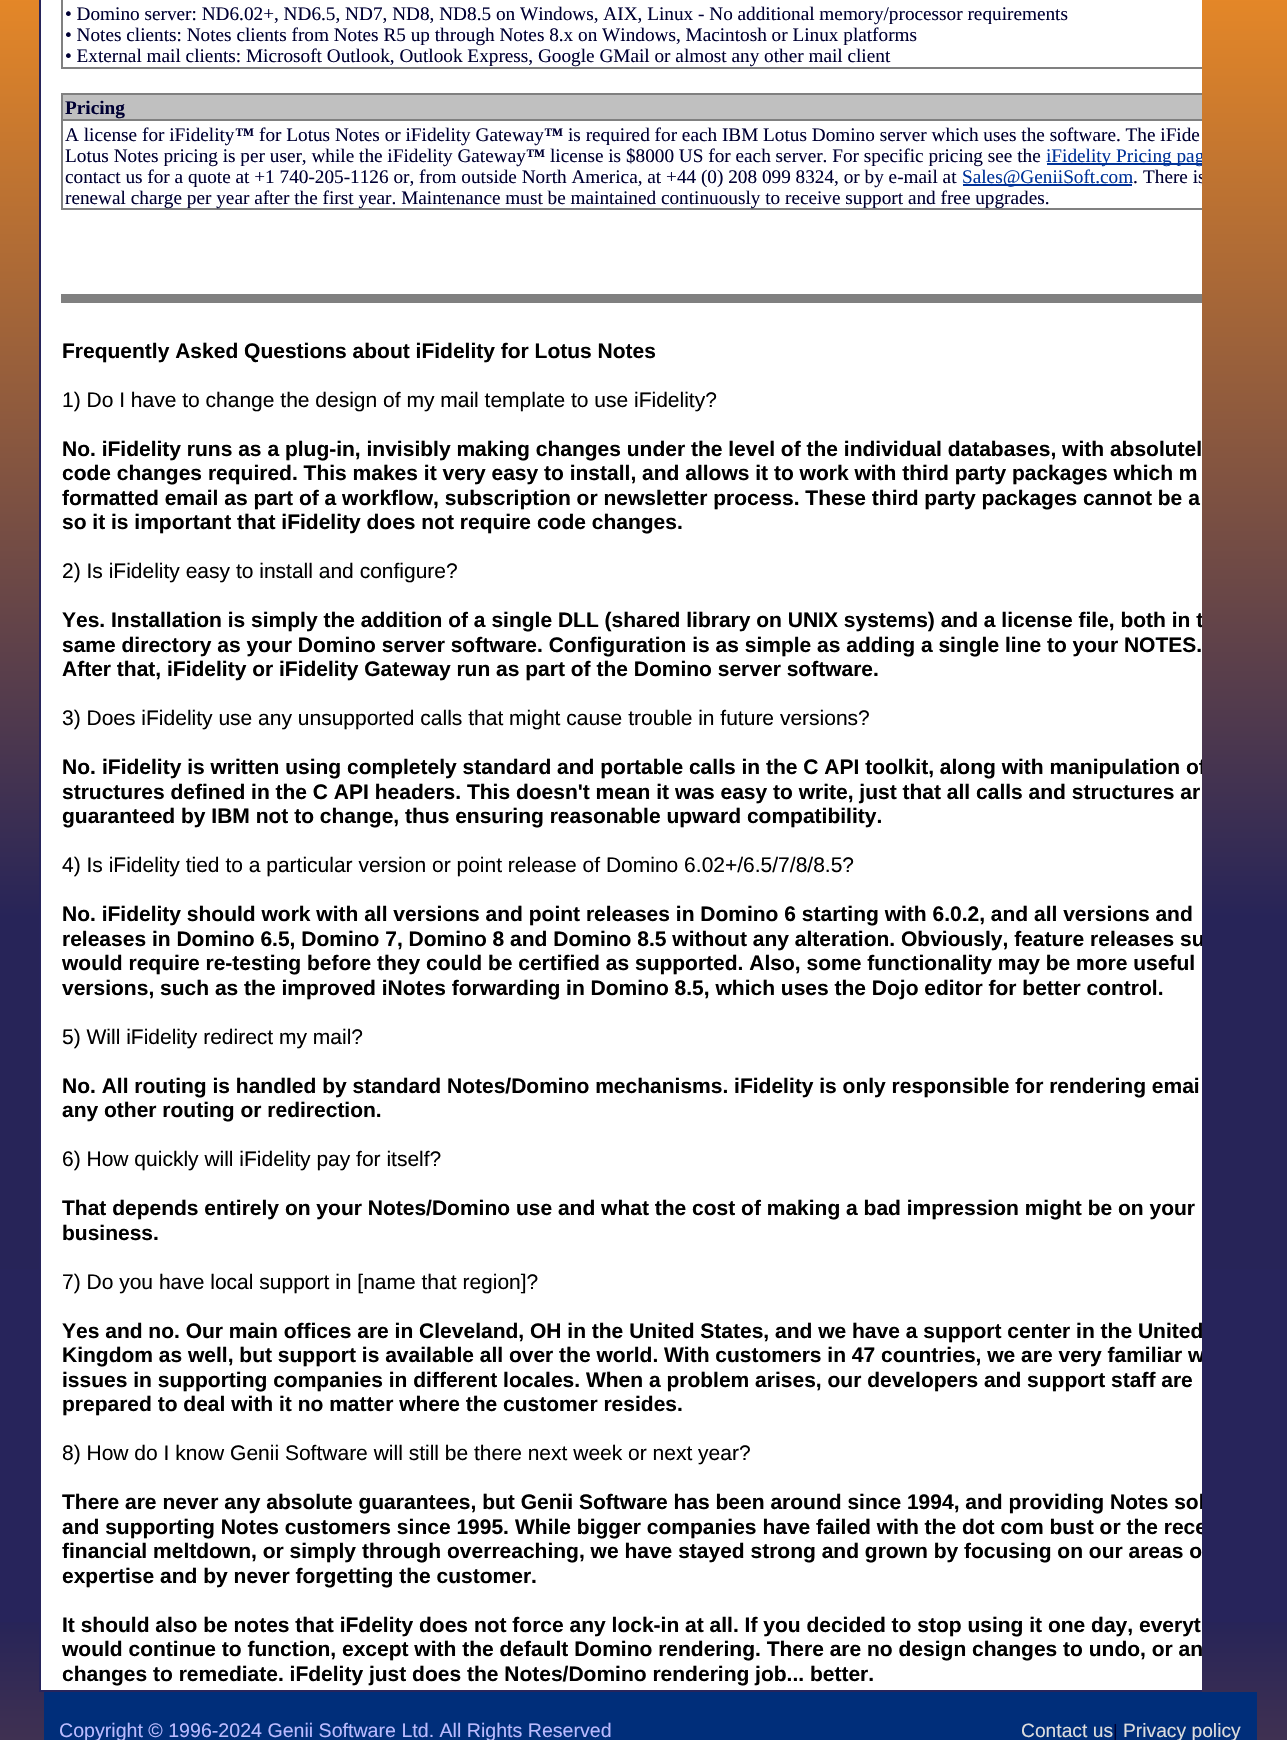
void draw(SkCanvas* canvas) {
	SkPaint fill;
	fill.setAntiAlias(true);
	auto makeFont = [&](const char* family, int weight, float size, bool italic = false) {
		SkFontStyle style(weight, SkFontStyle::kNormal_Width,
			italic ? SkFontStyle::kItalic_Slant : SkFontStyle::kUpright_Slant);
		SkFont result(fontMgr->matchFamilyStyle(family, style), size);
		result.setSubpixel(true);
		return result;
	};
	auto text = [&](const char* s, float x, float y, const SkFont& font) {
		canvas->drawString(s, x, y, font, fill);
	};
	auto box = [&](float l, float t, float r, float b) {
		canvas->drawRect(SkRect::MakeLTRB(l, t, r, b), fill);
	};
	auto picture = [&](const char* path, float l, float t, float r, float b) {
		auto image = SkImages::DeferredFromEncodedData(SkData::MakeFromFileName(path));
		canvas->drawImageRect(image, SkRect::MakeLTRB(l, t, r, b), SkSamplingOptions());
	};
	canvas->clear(0xFFFFFFFF);
	picture("image0.png", 0, 0, 1287, 1740);
	fill.setColor(0xFFFFFFFF);
	box(41, 0, 1202, 1690);
	canvas->save();
	canvas->clipRect(SkRect::MakeLTRB(32, 0, 1202, 1692));
	fill.setStyle(SkPaint::kStroke_Style);
	fill.setStrokeWidth(2);
	fill.setColor(0xFF27245B);
	canvas->drawRect(SkRect::MakeLTRB(40, -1, 1284, 1691), fill);
	canvas->restore();
	fill.setStyle(SkPaint::kFill_Style);
	fill.setColor(0xFF808080);
	box(61, 67, 1202, 69);
	box(61, 0, 63, 68);
	box(61, 93, 1202, 95);
	box(61, 208, 1202, 210);
	box(61, 93, 63, 210);
	fill.setColor(0xFFC0C0C0);
	box(63, 95, 1202, 119);
	fill.setColor(0xFF808080);
	box(61, 119, 1202, 121);
	fill.setColor(0xFF003399);
	box(1047, 163, 1202, 165);
	box(963, 184, 1132, 186);
	fill.setColor(0xFF808080);
	box(61, 294, 1202, 303);
	fill.setColor(0xFF002E7A);
	box(44, 1692, 1257, 1717);
	box(44, 1717, 1257, 1740);
	auto font1 = makeFont("Liberation Serif", 400, 19.25f);
	fill.setColor(0xFF000033);
	text("• Domino server: ND6.02+, ND6.5, ND7, ND8, ND8.5 on Windows, AIX, Linux - No additional memory/processor requirements", 65, 20, font1);
	text("• Notes clients: Notes clients from Notes R5 up through Notes 8.x on Windows, Macintosh or Linux platforms", 65, 41, font1);
	text("• External mail clients: Microsoft Outlook, Outlook Express, Google GMail or almost any other mail client", 65, 62, font1);
	auto font2 = makeFont("Liberation Serif", 700, 19.25f);
	text("Pricing", 65, 114, font2);
	text("A license for iFidelity", 65, 141, font1);
	text("™", 235, 141, font2);
	text("for Lotus Notes or iFidelity Gateway", 259, 141, font1);
	text("™", 544, 141, font2);
	text("is required for each IBM Lotus Domino server which uses the software. The iFide", 568, 141, font1);
	text("Lotus Notes pricing is per user, while the iFidelity Gateway", 65, 162, font1);
	text("™", 526, 162, font2);
	text("license is $8000 US for each server. For specific pricing see the", 550, 162, font1);
	canvas->save();
	canvas->clipRect(SkRect::MakeLTRB(32, 0, 1202, 1692));
	fill.setColor(0xFF003399);
	text("iFidelity Pricing pag", 1046, 162, font1);
	canvas->restore();
	fill.setColor(0xFF000033);
	text("contact us for a quote at +1 740-205-1126 or, from outside North America, at +44 (0) 208 099 8324, or by e-mail at", 65, 183, font1);
	fill.setColor(0xFF003399);
	text("Sales@GeniiSoft.com", 962, 183, font1);
	fill.setColor(0xFF000033);
	text(".", 1133, 183, font1);
	canvas->save();
	canvas->clipRect(SkRect::MakeLTRB(32, 0, 1202, 1692));
	text("There is", 1143, 183, font1);
	canvas->restore();
	text("renewal charge per year after the first year. Maintenance must be maintained continuously to receive support and free upgrades.", 65, 204, font1);
	auto font3 = makeFont("Liberation Sans", 700, 21);
	fill.setColor(0xFF000000);
	text("Frequently Asked Questions about iFidelity for Lotus Notes", 62, 358, font3);
	auto font4 = makeFont("Liberation Sans", 400, 21);
	text("1) Do I have to change the design of my mail template to use iFidelity?", 62, 407, font4);
	text("No. iFidelity runs as a plug-in, invisibly making changes under the level of the individual databases, with absolutel", 62, 456, font3);
	text("code changes required. This makes it very easy to install, and allows it to work with third party packages which m", 62, 480, font3);
	text("formatted email as part of a workflow, subscription or newsletter process. These third party packages cannot be a", 62, 505, font3);
	text("so it is important that iFidelity does not require code changes.", 62, 529, font3);
	text("2) Is iFidelity easy to install and configure?", 62, 578, font4);
	text("Yes.", 62, 627, font3);
	canvas->save();
	canvas->clipRect(SkRect::MakeLTRB(32, 0, 1202, 1692));
	text("Installation is simply the addition of a single DLL (shared library on UNIX systems) and a license file, both in t", 111, 627, font3);
	canvas->restore();
	text("same directory as your Domino server software. Configuration is as simple as adding a single line to your NOTES.", 62, 652, font3);
	text("After that, iFidelity or iFidelity Gateway run as part of the Domino server software.", 62, 676, font3);
	text("3) Does iFidelity use any unsupported calls that might cause trouble in future versions?", 62, 725, font4);
	text("No.", 62, 774, font3);
	canvas->save();
	canvas->clipRect(SkRect::MakeLTRB(32, 0, 1202, 1692));
	text("iFidelity is written using completely standard and portable calls in the C API toolkit, along with manipulation of", 102, 774, font3);
	canvas->restore();
	text("structures defined in the C API headers. This doesn't mean it was easy to write, just that all calls and structures ar", 62, 799, font3);
	text("guaranteed by IBM not to change, thus ensuring reasonable upward compatibility.", 62, 823, font3);
	text("4) Is iFidelity tied to a particular version or point release of Domino 6.02+/6.5/7/8/8.5?", 62, 872, font4);
	text("No. iFidelity should work with all versions and point releases in Domino 6 starting with 6.0.2, and all versions and", 62, 921, font3);
	text("releases in Domino 6.5, Domino 7, Domino 8 and Domino 8.5 without any alteration.", 62, 946, font3);
	canvas->save();
	canvas->clipRect(SkRect::MakeLTRB(32, 0, 1202, 1692));
	text("Obviously, feature releases su", 901, 946, font3);
	canvas->restore();
	text("would require re-testing before they could be certified as supported. Also, some functionality may be more useful", 62, 970, font3);
	text("versions, such as the improved iNotes forwarding in Domino 8.5, which uses the Dojo editor for better control.", 62, 995, font3);
	text("5) Will iFidelity redirect my mail?", 62, 1044, font4);
	text("No. All routing is handled by standard Notes/Domino mechanisms. iFidelity is only responsible for rendering emai", 62, 1093, font3);
	text("any other routing or redirection.", 62, 1117, font3);
	text("6) How quickly will iFidelity pay for itself?", 62, 1166, font4);
	text("That depends entirely on your Notes/Domino use and what the cost of making a bad impression might be on your", 62, 1215, font3);
	text("business.", 62, 1240, font3);
	text("7) Do you have local support in [name that region]?", 62, 1289, font4);
	text("Yes and no. Our main offices are in Cleveland, OH in the United States, and we have a support center in the United", 62, 1338, font3);
	text("Kingdom as well, but support is available all over the world.", 62, 1362, font3);
	canvas->save();
	canvas->clipRect(SkRect::MakeLTRB(32, 0, 1202, 1692));
	text("With customers in 47 countries, we are very familiar w", 664, 1362, font3);
	canvas->restore();
	text("issues in supporting companies in different locales. When a problem arises, our developers and support staff are", 62, 1387, font3);
	text("prepared to deal with it no matter where the customer resides.", 62, 1411, font3);
	text("8) How do I know Genii Software will still be there next week or next year?", 62, 1460, font4);
	canvas->save();
	canvas->clipRect(SkRect::MakeLTRB(32, 0, 1202, 1692));
	text("There are never any absolute guarantees, but Genii Software has been around since 1994, and providing Notes sol", 62, 1509, font3);
	canvas->restore();
	text("and supporting Notes customers since 1995.", 62, 1534, font3);
	canvas->save();
	canvas->clipRect(SkRect::MakeLTRB(32, 0, 1202, 1692));
	text("While bigger companies have failed with the dot com bust or the rece", 515, 1534, font3);
	canvas->restore();
	text("financial meltdown, or simply through overreaching, we have stayed strong and grown by focusing on our areas o", 62, 1558, font3);
	text("expertise and by never forgetting the customer.", 62, 1583, font3);
	text("It should also be notes that iFdelity does not force any lock-in at all. If you decided to stop using it one day, everyt", 62, 1632, font3);
	text("would continue to function, except with the default Domino rendering. There are no design changes to undo, or an", 62, 1656, font3);
	text("changes to remediate. iFdelity just does the Notes/Domino rendering job... better.", 62, 1681, font3);
	auto font5 = makeFont("Liberation Sans", 400, 19.6f);
	fill.setColor(0xFFBBBBFF);
	text("Copyright © 1996-2024 Genii Software Ltd. All Rights Reserved", 59, 1737, font5);
	auto font6 = makeFont("Liberation Sans", 400, 19.25f);
	fill.setColor(0xFFDDDDDD);
	text("Contact us", 1021, 1737, font6);
	auto font7 = makeFont("Liberation Sans", 400, 18);
	fill.setColor(0xFF000033);
	text("|", 1113, 1737, font7);
	fill.setColor(0xFFDDDDDD);
	text("Privacy policy", 1123, 1737, font6);
}
